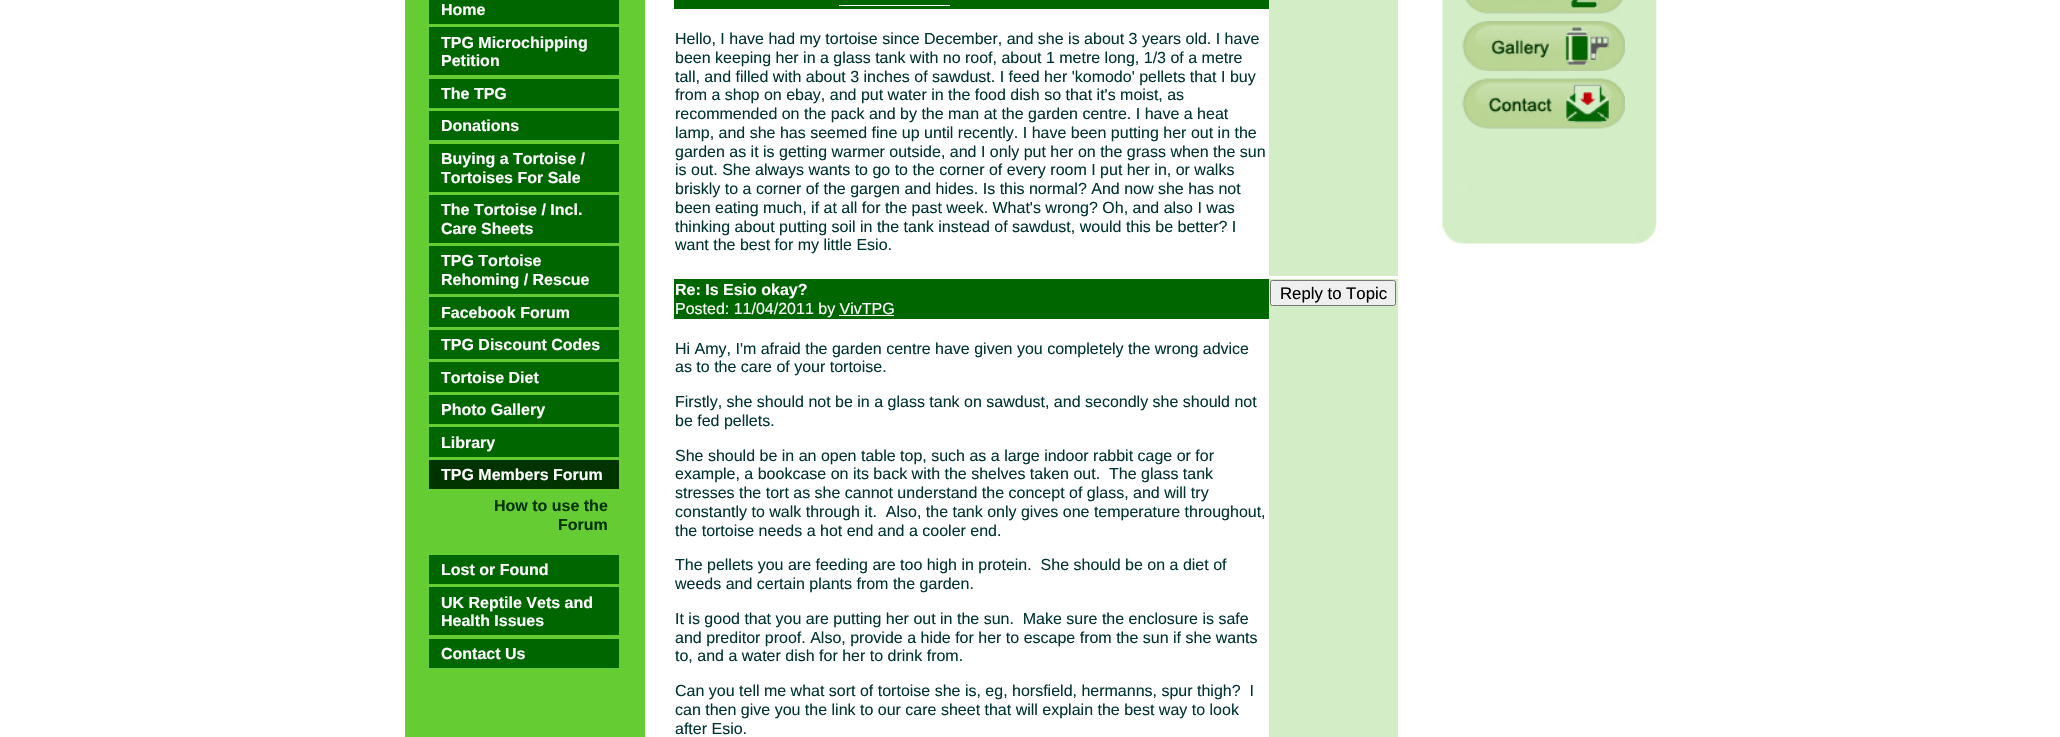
void draw(SkCanvas* canvas) {
	SkPaint fill;
	fill.setAntiAlias(true);
	auto makeFont = [&](const char* family, int weight, float size, bool italic = false) {
		SkFontStyle style(weight, SkFontStyle::kNormal_Width,
			italic ? SkFontStyle::kItalic_Slant : SkFontStyle::kUpright_Slant);
		SkFont result(fontMgr->matchFamilyStyle(family, style), size);
		result.setSubpixel(true);
		return result;
	};
	auto text = [&](const char* s, float x, float y, const SkFont& font) {
		canvas->drawString(s, x, y, font, fill);
	};
	auto box = [&](float l, float t, float r, float b) {
		canvas->drawRect(SkRect::MakeLTRB(l, t, r, b), fill);
	};
	auto picture = [&](const char* path, float l, float t, float r, float b) {
		auto image = SkImages::DeferredFromEncodedData(SkData::MakeFromFileName(path));
		canvas->drawImageRect(image, SkRect::MakeLTRB(l, t, r, b), SkSamplingOptions());
	};
	canvas->clear(0xFFFFFFFF);
	fill.setColor(0xFF66CC33);
	box(405, 0, 645, 737);
	fill.setColor(0xFF006600);
	box(429, 0, 619, 24);
	box(429, 27, 619, 75);
	box(429, 79, 619, 108);
	box(429, 111, 619, 140);
	box(429, 144, 619, 192);
	box(429, 195, 619, 243);
	box(429, 246, 619, 294);
	box(429, 297, 619, 327);
	box(429, 330, 619, 359);
	box(429, 362, 619, 392);
	box(429, 395, 619, 424);
	box(429, 427, 619, 457);
	fill.setColor(0xFF003300);
	box(429, 460, 619, 489);
	fill.setColor(0xFF006600);
	box(429, 555, 619, 584);
	box(429, 587, 619, 635);
	box(429, 639, 619, 668);
	box(674, 0, 1269, 9);
	fill.setColor(0xFFFFFFFF);
	box(839, 5, 950, 6);
	fill.setColor(0xFFD3EDC6);
	box(1269, 0, 1398, 276);
	fill.setColor(0xFF006600);
	box(674, 279, 1269, 319);
	fill.setColor(0xFFFFFFFF);
	box(839, 315, 894, 316);
	fill.setColor(0xFFD3EDC6);
	box(1269, 279, 1398, 737);
	fill.setColor(0xFFEFEFEF);
	canvas->drawRoundRect(SkRect::MakeLTRB(1270.5f, 280.5f, 1395.5f, 305.5f), 2, 2, fill);
	fill.setStyle(SkPaint::kStroke_Style);
	fill.setStrokeWidth(1);
	fill.setColor(0xFF767676);
	canvas->drawRoundRect(SkRect::MakeLTRB(1270.5f, 280.5f, 1395.5f, 305.5f), 2, 2, fill);
	picture("image0.png", 1438, 0, 1657, 244);
	picture("image1.png", 1464, 0, 1623, 14);
	picture("image2.png", 1462, 21, 1625, 71);
	picture("image3.png", 1462, 78, 1625, 129);
	auto font1 = makeFont("Liberation Sans", 700, 16);
	fill.setStyle(SkPaint::kFill_Style);
	fill.setColor(0xFFFFFFFF);
	text("Home", 441, 15, font1);
	text("TPG Microchipping", 441, 48, font1);
	text("Petition", 441, 66, font1);
	text("The TPG", 441, 99, font1);
	text("Donations", 441, 131, font1);
	text("Buying a Tortoise /", 441, 164, font1);
	text("Tortoises For Sale", 441, 183, font1);
	text("The Tortoise / Incl.", 441, 215, font1);
	text("Care Sheets", 441, 234, font1);
	text("TPG Tortoise", 441, 266, font1);
	text("Rehoming / Rescue", 441, 285, font1);
	text("Facebook Forum", 441, 318, font1);
	text("TPG Discount Codes", 441, 350, font1);
	text("Tortoise Diet", 441, 383, font1);
	text("Photo Gallery", 441, 415, font1);
	text("Library", 441, 448, font1);
	text("TPG Members Forum", 441, 480, font1);
	fill.setColor(0xFF003300);
	text("How to use the", 494, 511, font1);
	text("Forum", 558, 530, font1);
	fill.setColor(0xFFFFFFFF);
	text("Lost or Found", 441, 575, font1);
	text("UK Reptile Vets and", 441, 608, font1);
	text("Health Issues", 441, 626, font1);
	text("Contact Us", 441, 659, font1);
	auto font2 = makeFont("Liberation Sans", 400, 16);
	fill.setColor(0xFF003333);
	text("Hello, I have had my tortoise since December, and she is about 3 years old. I have", 675, 44, font2);
	text("been keeping her in a glass tank with no roof, about 1 metre long, 1/3 of a metre", 675, 63, font2);
	text("tall, and filled with about 3 inches of sawdust. I feed her 'komodo' pellets that I buy", 675, 82, font2);
	text("from a shop on ebay, and put water in the food dish so that it's moist, as", 675, 100, font2);
	text("recommended on the pack and by the man at the garden centre. I have a heat", 675, 119, font2);
	text("lamp, and she has seemed fine up until recently. I have been putting her out in the", 675, 138, font2);
	text("garden as it is getting warmer outside, and I only put her on the grass when the sun", 675, 157, font2);
	text("is out. She always wants to go to the corner of every room I put her in, or walks", 675, 175, font2);
	text("briskly to a corner of the gargen and hides. Is this normal? And now she has not", 675, 194, font2);
	text("been eating much, if at all for the past week. What's wrong? Oh, and also I was", 675, 213, font2);
	text("thinking about putting soil in the tank instead of sawdust, would this be better? I", 675, 232, font2);
	text("want the best for my little Esio.", 675, 250, font2);
	fill.setColor(0xFFFFFFFF);
	text("Re: Is Esio okay?", 675, 295, font1);
	text("Posted: 11/04/2011 by VivTPG", 675, 314, font2);
	auto font3 = makeFont("Liberation Sans", 400, 16.75f);
	fill.setColor(0xFF000000);
	text("Reply to Topic", 1280, 299, font3);
	fill.setColor(0xFF003333);
	text("Hi Amy, I'm afraid the garden centre have given you completely the wrong advice", 675, 354, font2);
	text("as to the care of your tortoise.", 675, 372, font2);
	text("Firstly, she should not be in a glass tank on sawdust, and secondly she should not", 675, 407, font2);
	text("be fed pellets.", 675, 426, font2);
	text("She should be in an open table top, such as a large indoor rabbit cage or for", 675, 461, font2);
	text("example, a bookcase on its back with the shelves taken out.  The glass tank", 675, 479, font2);
	text("stresses the tort as she cannot understand the concept of glass, and will try", 675, 498, font2);
	text("constantly to walk through it.  Also, the tank only gives one temperature throughout,", 675, 517, font2);
	text("the tortoise needs a hot end and a cooler end.", 675, 536, font2);
	text("The pellets you are feeding are too high in protein.  She should be on a diet of", 675, 570, font2);
	text("weeds and certain plants from the garden.", 675, 589, font2);
	text("It is good that you are putting her out in the sun.  Make sure the enclosure is safe", 675, 624, font2);
	text("and preditor proof. Also, provide a hide for her to escape from the sun if she wants", 675, 643, font2);
	text("to, and a water dish for her to drink from.", 675, 661, font2);
	text("Can you tell me what sort of tortoise she is, eg, horsfield, hermanns, spur thigh?  I", 675, 696, font2);
	text("can then give you the link to our care sheet that will explain the best way to look", 675, 715, font2);
	text("after Esio.", 675, 734, font2);
}
